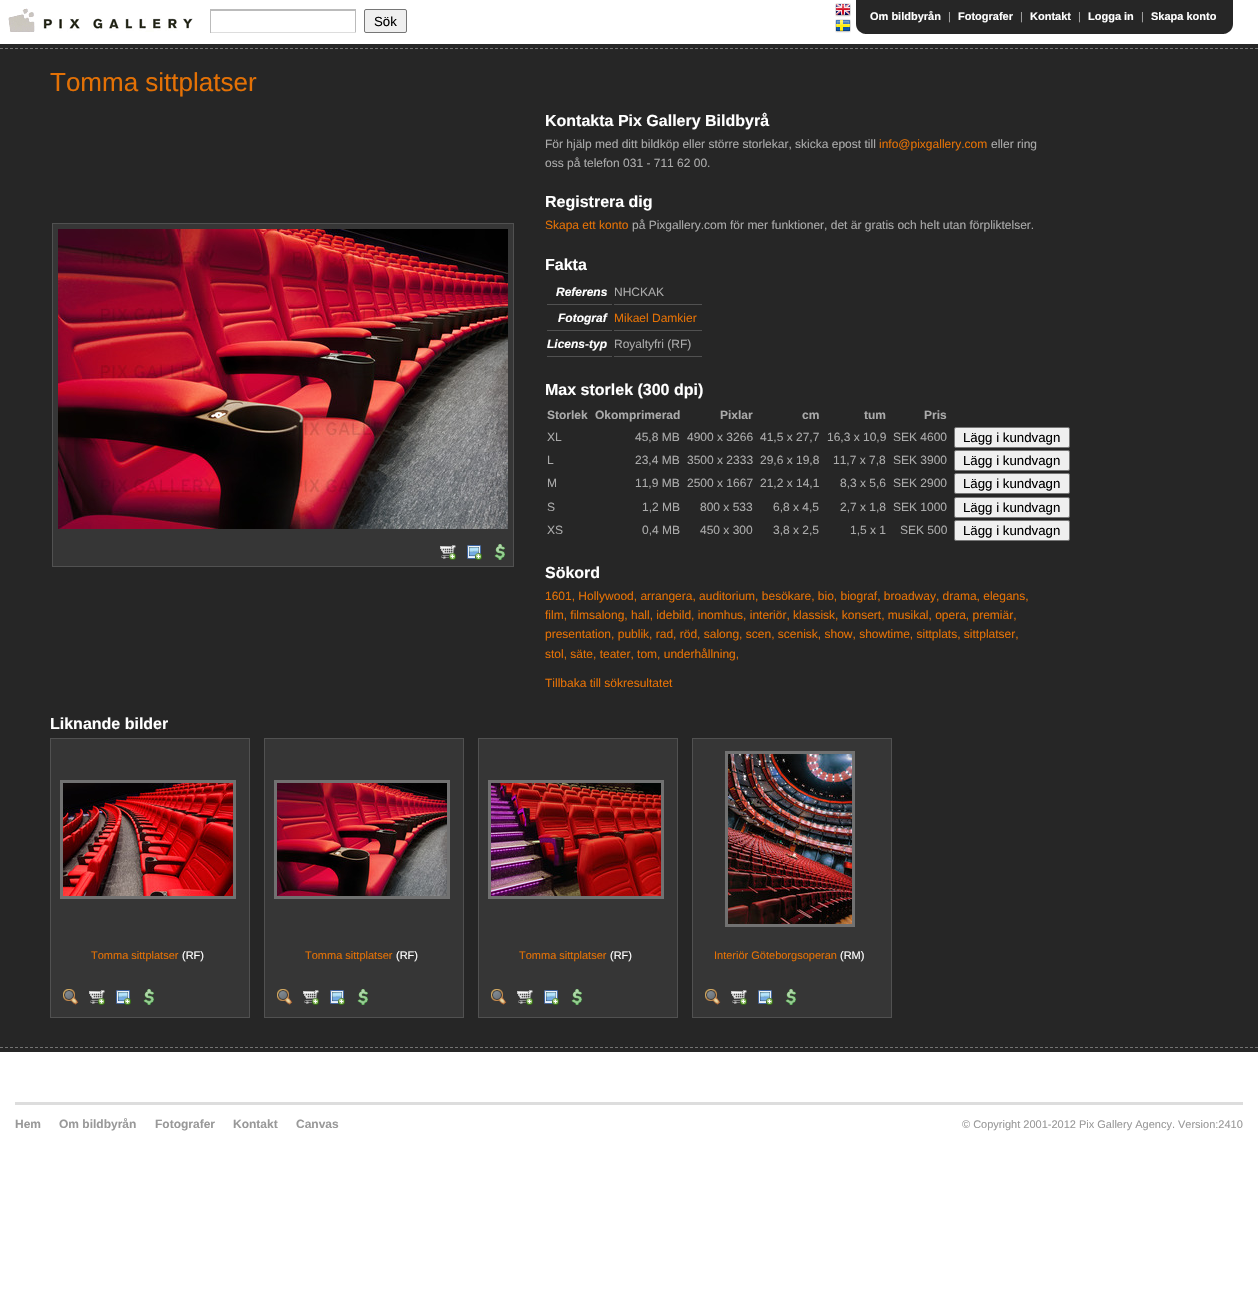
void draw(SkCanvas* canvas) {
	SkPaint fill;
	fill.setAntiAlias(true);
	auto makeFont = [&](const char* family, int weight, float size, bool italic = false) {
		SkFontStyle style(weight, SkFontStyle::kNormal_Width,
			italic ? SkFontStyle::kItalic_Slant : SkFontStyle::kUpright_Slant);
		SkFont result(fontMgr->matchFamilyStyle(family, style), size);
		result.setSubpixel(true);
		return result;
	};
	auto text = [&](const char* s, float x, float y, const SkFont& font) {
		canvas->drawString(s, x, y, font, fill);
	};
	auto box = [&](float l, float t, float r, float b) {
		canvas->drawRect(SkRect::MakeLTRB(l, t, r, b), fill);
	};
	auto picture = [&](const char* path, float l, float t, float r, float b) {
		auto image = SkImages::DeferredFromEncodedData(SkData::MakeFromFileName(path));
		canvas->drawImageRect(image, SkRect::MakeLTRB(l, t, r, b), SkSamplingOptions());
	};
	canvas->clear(0xFFFFFFFF);
	picture("image0.png", 8, 8, 193, 32);
	fill.setColor(0xFFBBBBBB);
	box(210, 9, 356, 11);
	box(355, 9, 356, 33);
	fill.setColor(0xFFDDDDDD);
	box(210, 32, 356, 33);
	fill.setColor(0xFFBBBBBB);
	box(210, 9, 211, 33);
	fill.setColor(0xFFEFEFEF);
	canvas->drawRoundRect(SkRect::MakeLTRB(364.5f, 9.5f, 406.5f, 32.5f), 1.5f, 1.5f, fill);
	fill.setStyle(SkPaint::kStroke_Style);
	fill.setStrokeWidth(1);
	fill.setColor(0xFF767676);
	canvas->drawRoundRect(SkRect::MakeLTRB(364.5f, 9.5f, 406.5f, 32.5f), 1.5f, 1.5f, fill);
	picture("image1.png", 835, 3, 851, 17);
	picture("image2.png", 835, 19, 851, 33);
	fill.setStyle(SkPaint::kFill_Style);
	fill.setColor(0xFF262626);
	box(856, 0, 1233, 34);
	picture("image3.png", 856, 24, 865, 34);
	picture("image4.png", 1224, 24, 1233, 34);
	box(0, 44, 1258, 1052);
	picture("image5.png", 0, 48, 1258, 49);
	picture("image5.png", 0, 1047, 1258, 1048);
	fill.setColor(0xFF363636);
	canvas->drawRect(SkRect::MakeLTRB(52.5f, 223.5f, 513.5f, 566.5f), fill);
	fill.setStyle(SkPaint::kStroke_Style);
	fill.setColor(0xFF515151);
	canvas->drawRect(SkRect::MakeLTRB(52.5f, 223.5f, 513.5f, 566.5f), fill);
	picture("image6.png", 58, 229, 508, 529);
	picture("image7.png", 440, 545, 456, 560);
	picture("image8.png", 467, 545, 482, 560);
	picture("image9.png", 494, 544, 505, 560);
	fill.setStyle(SkPaint::kFill_Style);
	box(547, 304, 612, 305);
	box(614, 304, 702, 305);
	box(547, 330, 612, 331);
	box(614, 330, 702, 331);
	box(547, 356, 612, 357);
	box(614, 356, 702, 357);
	fill.setColor(0xFFEFEFEF);
	canvas->drawRoundRect(SkRect::MakeLTRB(954.5f, 427.5f, 1069.5f, 447.5f), 1.5f, 1.5f, fill);
	fill.setStyle(SkPaint::kStroke_Style);
	fill.setColor(0xFF767676);
	canvas->drawRoundRect(SkRect::MakeLTRB(954.5f, 427.5f, 1069.5f, 447.5f), 1.5f, 1.5f, fill);
	fill.setStyle(SkPaint::kFill_Style);
	fill.setColor(0xFFEFEFEF);
	canvas->drawRoundRect(SkRect::MakeLTRB(954.5f, 450.5f, 1069.5f, 470.5f), 1.5f, 1.5f, fill);
	fill.setStyle(SkPaint::kStroke_Style);
	fill.setColor(0xFF767676);
	canvas->drawRoundRect(SkRect::MakeLTRB(954.5f, 450.5f, 1069.5f, 470.5f), 1.5f, 1.5f, fill);
	fill.setStyle(SkPaint::kFill_Style);
	fill.setColor(0xFFEFEFEF);
	canvas->drawRoundRect(SkRect::MakeLTRB(954.5f, 473.5f, 1069.5f, 493.5f), 1.5f, 1.5f, fill);
	fill.setStyle(SkPaint::kStroke_Style);
	fill.setColor(0xFF767676);
	canvas->drawRoundRect(SkRect::MakeLTRB(954.5f, 473.5f, 1069.5f, 493.5f), 1.5f, 1.5f, fill);
	fill.setStyle(SkPaint::kFill_Style);
	fill.setColor(0xFFEFEFEF);
	canvas->drawRoundRect(SkRect::MakeLTRB(954.5f, 497.5f, 1069.5f, 517.5f), 1.5f, 1.5f, fill);
	fill.setStyle(SkPaint::kStroke_Style);
	fill.setColor(0xFF767676);
	canvas->drawRoundRect(SkRect::MakeLTRB(954.5f, 497.5f, 1069.5f, 517.5f), 1.5f, 1.5f, fill);
	fill.setStyle(SkPaint::kFill_Style);
	fill.setColor(0xFFEFEFEF);
	canvas->drawRoundRect(SkRect::MakeLTRB(954.5f, 520.5f, 1069.5f, 540.5f), 1.5f, 1.5f, fill);
	fill.setStyle(SkPaint::kStroke_Style);
	fill.setColor(0xFF767676);
	canvas->drawRoundRect(SkRect::MakeLTRB(954.5f, 520.5f, 1069.5f, 540.5f), 1.5f, 1.5f, fill);
	fill.setStyle(SkPaint::kFill_Style);
	fill.setColor(0xFF363636);
	canvas->drawRect(SkRect::MakeLTRB(50.5f, 738.5f, 249.5f, 1017.5f), fill);
	fill.setStyle(SkPaint::kStroke_Style);
	fill.setColor(0xFF515151);
	canvas->drawRect(SkRect::MakeLTRB(50.5f, 738.5f, 249.5f, 1017.5f), fill);
	fill.setStrokeWidth(3);
	fill.setColor(0xFF717171);
	canvas->drawRect(SkRect::MakeLTRB(61.5f, 781.5f, 234.5f, 897.5f), fill);
	picture("image10.png", 63, 783, 233, 896);
	picture("image11.png", 63, 989, 79, 1005);
	picture("image7.png", 89, 990, 105, 1005);
	picture("image8.png", 116, 990, 131, 1005);
	picture("image9.png", 143, 989, 154, 1005);
	fill.setStyle(SkPaint::kFill_Style);
	fill.setColor(0xFF363636);
	canvas->drawRect(SkRect::MakeLTRB(264.5f, 738.5f, 463.5f, 1017.5f), fill);
	fill.setStyle(SkPaint::kStroke_Style);
	fill.setStrokeWidth(1);
	fill.setColor(0xFF515151);
	canvas->drawRect(SkRect::MakeLTRB(264.5f, 738.5f, 463.5f, 1017.5f), fill);
	fill.setStrokeWidth(3);
	fill.setColor(0xFF717171);
	canvas->drawRect(SkRect::MakeLTRB(275.5f, 781.5f, 448.5f, 897.5f), fill);
	picture("image12.png", 277, 783, 447, 896);
	picture("image11.png", 277, 989, 293, 1005);
	picture("image7.png", 303, 990, 319, 1005);
	picture("image8.png", 330, 990, 345, 1005);
	picture("image9.png", 357, 989, 368, 1005);
	fill.setStyle(SkPaint::kFill_Style);
	fill.setColor(0xFF363636);
	canvas->drawRect(SkRect::MakeLTRB(478.5f, 738.5f, 677.5f, 1017.5f), fill);
	fill.setStyle(SkPaint::kStroke_Style);
	fill.setStrokeWidth(1);
	fill.setColor(0xFF515151);
	canvas->drawRect(SkRect::MakeLTRB(478.5f, 738.5f, 677.5f, 1017.5f), fill);
	fill.setStrokeWidth(3);
	fill.setColor(0xFF717171);
	canvas->drawRect(SkRect::MakeLTRB(489.5f, 781.5f, 662.5f, 897.5f), fill);
	picture("image13.png", 491, 783, 661, 896);
	picture("image11.png", 491, 989, 507, 1005);
	picture("image7.png", 517, 990, 533, 1005);
	picture("image8.png", 544, 990, 559, 1005);
	picture("image9.png", 571, 989, 582, 1005);
	fill.setStyle(SkPaint::kFill_Style);
	fill.setColor(0xFF363636);
	canvas->drawRect(SkRect::MakeLTRB(692.5f, 738.5f, 891.5f, 1017.5f), fill);
	fill.setStyle(SkPaint::kStroke_Style);
	fill.setStrokeWidth(1);
	fill.setColor(0xFF515151);
	canvas->drawRect(SkRect::MakeLTRB(692.5f, 738.5f, 891.5f, 1017.5f), fill);
	fill.setStrokeWidth(3);
	fill.setColor(0xFF717171);
	canvas->drawRect(SkRect::MakeLTRB(726.5f, 752.5f, 853.5f, 925.5f), fill);
	picture("image14.png", 728, 754, 852, 924);
	picture("image11.png", 705, 989, 721, 1005);
	picture("image7.png", 731, 990, 747, 1005);
	picture("image8.png", 758, 990, 773, 1005);
	picture("image9.png", 785, 989, 796, 1005);
	fill.setStyle(SkPaint::kFill_Style);
	fill.setColor(0xFFDDDDDD);
	box(15, 1102, 1243, 1105);
	auto font1 = makeFont("Liberation Sans", 400, 13.25f);
	fill.setColor(0xFF000000);
	text("Sök", 374, 26, font1);
	auto font2 = makeFont("Liberation Sans", 700, 11);
	fill.setColor(0xFFFFFFFF);
	text("Om bildbyrån", 870, 20, font2);
	auto font3 = makeFont("Liberation Sans", 400, 11);
	fill.setColor(0xFFAAAAAA);
	text("|", 948, 20, font3);
	fill.setColor(0xFFFFFFFF);
	text("Fotografer", 958, 20, font2);
	fill.setColor(0xFFAAAAAA);
	text("|", 1020, 20, font3);
	fill.setColor(0xFFFFFFFF);
	text("Kontakt", 1030, 20, font2);
	fill.setColor(0xFFAAAAAA);
	text("|", 1078, 20, font3);
	fill.setColor(0xFFFFFFFF);
	text("Logga in", 1088, 20, font2);
	fill.setColor(0xFFAAAAAA);
	text("|", 1141, 20, font3);
	fill.setColor(0xFFFFFFFF);
	text("Skapa konto", 1151, 20, font2);
	auto font4 = makeFont("Liberation Sans", 400, 26);
	fill.setColor(0xFFE47105);
	text("Tomma sittplatser", 50, 91, font4);
	auto font5 = makeFont("Liberation Sans", 700, 16);
	fill.setColor(0xFFFFFFFF);
	text("Kontakta Pix Gallery Bildbyrå", 545, 126, font5);
	auto font6 = makeFont("Liberation Sans", 400, 12);
	fill.setColor(0xFFAAAAAA);
	text("För hjälp med ditt bildköp eller större storlekar, skicka epost till", 545, 148, font6);
	fill.setColor(0xFFE47105);
	text("info@pixgallery.com", 879, 148, font6);
	fill.setColor(0xFFAAAAAA);
	text("eller ring", 991, 148, font6);
	text("oss på telefon 031 - 711 62 00.", 545, 167, font6);
	fill.setColor(0xFFFFFFFF);
	text("Registrera dig", 545, 207, font5);
	fill.setColor(0xFFE47105);
	text("Skapa ett konto", 545, 229, font6);
	fill.setColor(0xFFAAAAAA);
	text("på Pixgallery.com för mer funktioner, det är gratis och helt utan förpliktelser.", 632, 229, font6);
	fill.setColor(0xFFFFFFFF);
	text("Fakta", 545, 270, font5);
	auto font7 = makeFont("Liberation Sans", 700, 12, true);
	text("Referens", 556, 296, font7);
	fill.setColor(0xFFAAAAAA);
	text("NHCKAK", 614, 296, font6);
	fill.setColor(0xFFFFFFFF);
	text("Fotograf", 558, 322, font7);
	fill.setColor(0xFFE47105);
	text("Mikael Damkier", 614, 322, font6);
	fill.setColor(0xFFFFFFFF);
	text("Licens-typ", 547, 348, font7);
	fill.setColor(0xFFAAAAAA);
	text("Royaltyfri (RF)", 614, 348, font6);
	fill.setColor(0xFFFFFFFF);
	text("Max storlek (300 dpi)", 545, 395, font5);
	auto font8 = makeFont("Liberation Sans", 700, 12);
	fill.setColor(0xFFAAAAAA);
	text("Storlek", 547, 419, font8);
	text("Okomprimerad", 595, 419, font8);
	text("Pixlar", 720, 419, font8);
	text("cm", 802, 419, font8);
	text("tum", 864, 419, font8);
	text("Pris", 924, 419, font8);
	text("XL", 547, 441, font6);
	text("45,8 MB", 635, 441, font6);
	text("4900 x 3266", 687, 441, font6);
	text("41,5 x 27,7", 760, 441, font6);
	text("16,3 x 10,9", 827, 441, font6);
	text("SEK 4600", 893, 441, font6);
	fill.setColor(0xFF000000);
	text("Lägg i kundvagn", 963, 442, font1);
	fill.setColor(0xFFAAAAAA);
	text("L", 547, 464, font6);
	text("23,4 MB", 635, 464, font6);
	text("3500 x 2333", 687, 464, font6);
	text("29,6 x 19,8", 760, 464, font6);
	text("11,7 x 7,8", 833, 464, font6);
	text("SEK 3900", 893, 464, font6);
	fill.setColor(0xFF000000);
	text("Lägg i kundvagn", 963, 465, font1);
	fill.setColor(0xFFAAAAAA);
	text("M", 547, 487, font6);
	text("11,9 MB", 635, 487, font6);
	text("2500 x 1667", 687, 487, font6);
	text("21,2 x 14,1", 760, 487, font6);
	text("8,3 x 5,6", 840, 487, font6);
	text("SEK 2900", 893, 487, font6);
	fill.setColor(0xFF000000);
	text("Lägg i kundvagn", 963, 488, font1);
	fill.setColor(0xFFAAAAAA);
	text("S", 547, 511, font6);
	text("1,2 MB", 642, 511, font6);
	text("800 x 533", 700, 511, font6);
	text("6,8 x 4,5", 773, 511, font6);
	text("2,7 x 1,8", 840, 511, font6);
	text("SEK 1000", 893, 511, font6);
	fill.setColor(0xFF000000);
	text("Lägg i kundvagn", 963, 512, font1);
	fill.setColor(0xFFAAAAAA);
	text("XS", 547, 534, font6);
	text("0,4 MB", 642, 534, font6);
	text("450 x 300", 700, 534, font6);
	text("3,8 x 2,5", 773, 534, font6);
	text("1,5 x 1", 850, 534, font6);
	text("SEK 500", 900, 534, font6);
	fill.setColor(0xFF000000);
	text("Lägg i kundvagn", 963, 535, font1);
	fill.setColor(0xFFFFFFFF);
	text("Sökord", 545, 578, font5);
	fill.setColor(0xFFE47105);
	text("1601, Hollywood, arrangera, auditorium, besökare, bio, biograf, broadway, drama, elegans,", 545, 600, font6);
	text("film, filmsalong, hall, idebild, inomhus, interiör, klassisk, konsert, musikal, opera, premiär,", 545, 619, font6);
	text("presentation, publik, rad, röd, salong, scen, scenisk, show, showtime, sittplats, sittplatser,", 545, 638, font6);
	text("stol, säte, teater, tom, underhållning,", 545, 658, font6);
	text("Tillbaka till sökresultatet", 545, 687, font6);
	fill.setColor(0xFFFFFFFF);
	text("Liknande bilder", 50, 729, font5);
	fill.setColor(0xFFE47105);
	text("Tomma sittplatser", 91, 959, font3);
	fill.setColor(0xFFFFFFFF);
	text("(RF)", 182, 959, font3);
	fill.setColor(0xFFE47105);
	text("Tomma sittplatser", 305, 959, font3);
	fill.setColor(0xFFFFFFFF);
	text("(RF)", 396, 959, font3);
	fill.setColor(0xFFE47105);
	text("Tomma sittplatser", 519, 959, font3);
	fill.setColor(0xFFFFFFFF);
	text("(RF)", 610, 959, font3);
	fill.setColor(0xFFE47105);
	text("Interiör Göteborgsoperan", 714, 959, font3);
	fill.setColor(0xFFFFFFFF);
	text("(RM)", 840, 959, font3);
	fill.setColor(0xFF999999);
	text("Hem", 15, 1128, font8);
	text("Om bildbyrån", 59, 1128, font8);
	text("Fotografer", 155, 1128, font8);
	text("Kontakt", 233, 1128, font8);
	text("Canvas", 296, 1128, font8);
	text("© Copyright 2001-2012 Pix Gallery Agency. Version:2410", 962, 1128, font3);
}
